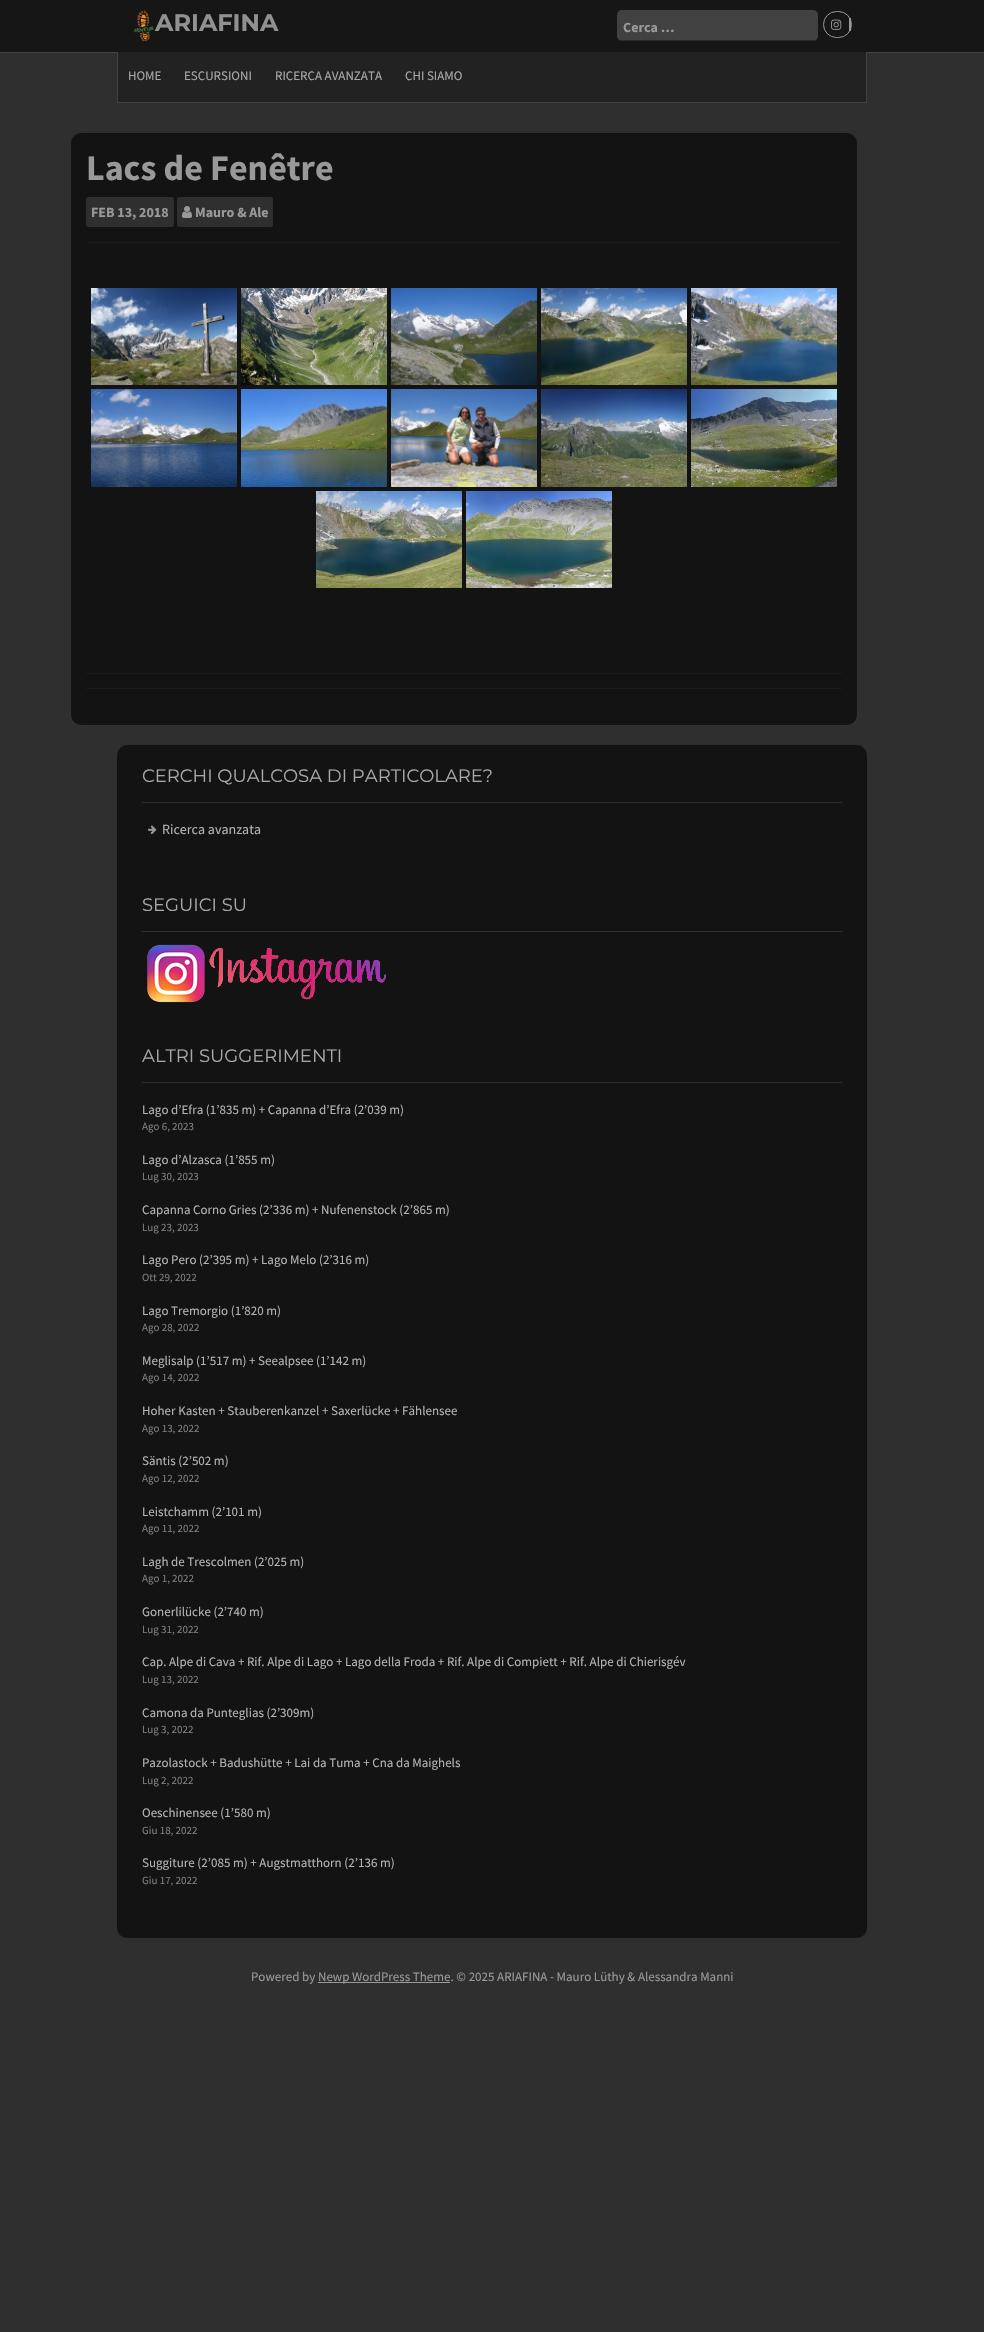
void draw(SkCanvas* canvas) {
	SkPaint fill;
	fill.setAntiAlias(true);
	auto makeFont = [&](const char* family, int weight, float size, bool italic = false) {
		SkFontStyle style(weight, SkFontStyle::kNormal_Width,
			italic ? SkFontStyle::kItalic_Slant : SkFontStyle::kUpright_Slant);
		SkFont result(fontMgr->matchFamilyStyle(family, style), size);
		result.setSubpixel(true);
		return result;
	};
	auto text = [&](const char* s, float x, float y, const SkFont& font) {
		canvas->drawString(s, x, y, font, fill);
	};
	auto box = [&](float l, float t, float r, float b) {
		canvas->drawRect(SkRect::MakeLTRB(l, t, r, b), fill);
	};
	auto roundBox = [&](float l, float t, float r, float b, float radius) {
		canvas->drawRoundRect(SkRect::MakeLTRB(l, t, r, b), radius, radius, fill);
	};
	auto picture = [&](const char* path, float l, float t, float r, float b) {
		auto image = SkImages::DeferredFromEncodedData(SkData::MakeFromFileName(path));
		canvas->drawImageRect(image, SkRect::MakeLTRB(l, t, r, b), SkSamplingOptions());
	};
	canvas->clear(0xFF2F2F2F);
	fill.setColor(0xFF161616);
	box(0, 0, 984, 52);
	fill.setColor(0xFF434343);
	box(0, 52, 984, 53);
	picture("image0.png", 134, 10, 154, 42);
	fill.setColor(0xFF414141);
	roundBox(617, 10, 818, 41, 5);
	fill.setColor(0xFF2A2A2A);
	box(620, 40, 816, 41);
	fill.setStyle(SkPaint::kStroke_Style);
	fill.setStrokeWidth(1);
	fill.setColor(0xFF999999);
	canvas->drawRoundRect(SkRect::MakeLTRB(823.5f, 11.5f, 851.5f, 37.5f), 13, 13, fill);
	fill.setStyle(SkPaint::kFill_Style);
	box(849, 18, 851, 31);
	picture("image1.png", 831, 19, 842, 30);
	fill.setColor(0xFF222222);
	box(118, 52, 866, 102);
	fill.setColor(0xFF434343);
	box(866, 53, 867, 103);
	box(117, 102, 867, 103);
	box(117, 53, 118, 103);
	fill.setColor(0xFF131313);
	roundBox(71, 133, 857, 725, 10);
	fill.setColor(0xFF1B1B1B);
	box(86, 242, 842, 243);
	fill.setColor(0xFF2F2F2F);
	roundBox(86, 197, 174, 227, 3);
	roundBox(177, 197, 273, 227, 3);
	picture("image2.png", 182, 206, 192, 218);
	picture("image3.png", 91, 288, 237, 385);
	picture("image4.png", 241, 288, 387, 385);
	picture("image5.png", 391, 288, 537, 385);
	picture("image6.png", 541, 288, 687, 385);
	picture("image7.png", 691, 288, 837, 385);
	picture("image8.png", 91, 389, 237, 487);
	picture("image9.png", 241, 389, 387, 487);
	picture("image10.png", 391, 389, 537, 487);
	picture("image11.png", 541, 389, 687, 487);
	picture("image12.png", 691, 389, 837, 487);
	picture("image13.png", 316, 491, 462, 588);
	picture("image14.png", 466, 491, 612, 588);
	fill.setColor(0xFF1B1B1B);
	box(86, 673, 842, 674);
	box(86, 688, 842, 689);
	fill.setColor(0xFF131313);
	roundBox(117, 745, 867, 1938, 10);
	fill.setColor(0xFF2F2F2F);
	box(142, 802, 842, 803);
	picture("image15.png", 148, 825, 157, 835);
	box(142, 931, 842, 932);
	picture("image16.png", 147, 944, 386, 1003);
	box(142, 1082, 842, 1083);
	fill.setColor(0xFF999999);
	box(318, 1982, 450, 1983);
	auto font1 = makeFont("Montserrat", 700, 24);
	fill.setColor(0xFF919191);
	text("ARIAFINA", 155, 31, font1);
	auto font2 = makeFont("Source Sans Pro", 700, 14);
	fill.setColor(0xFF999999);
	text("Cerca …", 623, 32, font2);
	auto font3 = makeFont("Source Sans Pro", 400, 13);
	fill.setColor(0xFFA8A8A8);
	text("HOME", 128, 80, font3);
	text("ESCURSIONI", 184, 80, font3);
	text("RICERCA AVANZATA", 275, 80, font3);
	text("CHI SIAMO", 405, 80, font3);
	auto font4 = makeFont("Source Sans Pro", 700, 36);
	fill.setColor(0xFF999999);
	text("Lacs de Fenêtre", 86, 180, font4);
	text("FEB 13, 2018", 91, 217, font2);
	text("Mauro & Ale", 195, 217, font2);
	auto font5 = makeFont("Montserrat", 400, 18);
	fill.setColor(0xFFA8A8A8);
	text("CERCHI QUALCOSA DI PARTICOLARE?", 142, 782, font5);
	auto font6 = makeFont("Source Sans Pro", 400, 14);
	fill.setColor(0xFFB3B3B3);
	text("Ricerca avanzata", 162, 834, font6);
	fill.setColor(0xFFA8A8A8);
	text("SEGUICI SU", 142, 911, font5);
	text("ALTRI SUGGERIMENTI", 142, 1062, font5);
	fill.setColor(0xFFB3B3B3);
	text("Lago d’Efra (1’835 m) + Capanna d’Efra (2’039 m)", 142, 1114, font3);
	auto font7 = makeFont("Source Sans Pro", 400, 11);
	fill.setColor(0xFF7E7E7E);
	text("Ago 6, 2023", 142, 1130, font7);
	fill.setColor(0xFFB3B3B3);
	text("Lago d’Alzasca (1’855 m)", 142, 1164, font3);
	fill.setColor(0xFF7E7E7E);
	text("Lug 30, 2023", 142, 1180, font7);
	fill.setColor(0xFFB3B3B3);
	text("Capanna Corno Gries (2’336 m) + Nufenenstock (2’865 m)", 142, 1214, font3);
	fill.setColor(0xFF7E7E7E);
	text("Lug 23, 2023", 142, 1231, font7);
	fill.setColor(0xFFB3B3B3);
	text("Lago Pero (2’395 m) + Lago Melo (2’316 m)", 142, 1264, font3);
	fill.setColor(0xFF7E7E7E);
	text("Ott 29, 2022", 142, 1281, font7);
	fill.setColor(0xFFB3B3B3);
	text("Lago Tremorgio (1’820 m)", 142, 1315, font3);
	fill.setColor(0xFF7E7E7E);
	text("Ago 28, 2022", 142, 1331, font7);
	fill.setColor(0xFFB3B3B3);
	text("Meglisalp (1’517 m) + Seealpsee (1’142 m)", 142, 1365, font3);
	fill.setColor(0xFF7E7E7E);
	text("Ago 14, 2022", 142, 1381, font7);
	fill.setColor(0xFFB3B3B3);
	text("Hoher Kasten + Stauberenkanzel + Saxerlücke + Fählensee", 142, 1415, font3);
	fill.setColor(0xFF7E7E7E);
	text("Ago 13, 2022", 142, 1432, font7);
	fill.setColor(0xFFB3B3B3);
	text("Säntis (2’502 m)", 142, 1465, font3);
	fill.setColor(0xFF7E7E7E);
	text("Ago 12, 2022", 142, 1482, font7);
	fill.setColor(0xFFB3B3B3);
	text("Leistchamm (2’101 m)", 142, 1516, font3);
	fill.setColor(0xFF7E7E7E);
	text("Ago 11, 2022", 142, 1532, font7);
	fill.setColor(0xFFB3B3B3);
	text("Lagh de Trescolmen (2’025 m)", 142, 1566, font3);
	fill.setColor(0xFF7E7E7E);
	text("Ago 1, 2022", 142, 1582, font7);
	fill.setColor(0xFFB3B3B3);
	text("Gonerlilücke (2’740 m)", 142, 1616, font3);
	fill.setColor(0xFF7E7E7E);
	text("Lug 31, 2022", 142, 1633, font7);
	fill.setColor(0xFFB3B3B3);
	text("Cap. Alpe di Cava + Rif. Alpe di Lago + Lago della Froda + Rif. Alpe di Compiett + Rif. Alpe di Chierisgév", 142, 1666, font3);
	fill.setColor(0xFF7E7E7E);
	text("Lug 13, 2022", 142, 1683, font7);
	fill.setColor(0xFFB3B3B3);
	text("Camona da Punteglias (2’309m)", 142, 1717, font3);
	fill.setColor(0xFF7E7E7E);
	text("Lug 3, 2022", 142, 1733, font7);
	fill.setColor(0xFFB3B3B3);
	text("Pazolastock + Badushütte + Lai da Tuma + Cna da Maighels", 142, 1767, font3);
	fill.setColor(0xFF7E7E7E);
	text("Lug 2, 2022", 142, 1784, font7);
	fill.setColor(0xFFB3B3B3);
	text("Oeschinensee (1’580 m)", 142, 1817, font3);
	fill.setColor(0xFF7E7E7E);
	text("Giu 18, 2022", 142, 1834, font7);
	fill.setColor(0xFFB3B3B3);
	text("Suggiture (2’085 m) + Augstmatthorn (2’136 m)", 142, 1867, font3);
	fill.setColor(0xFF7E7E7E);
	text("Giu 17, 2022", 142, 1884, font7);
	fill.setColor(0xFF999999);
	text("Powered by", 251, 1981, font3);
	text("Newp WordPress Theme. © 2025 ARIAFINA - Mauro Lüthy & Alessandra Manni", 318, 1981, font3);
}
